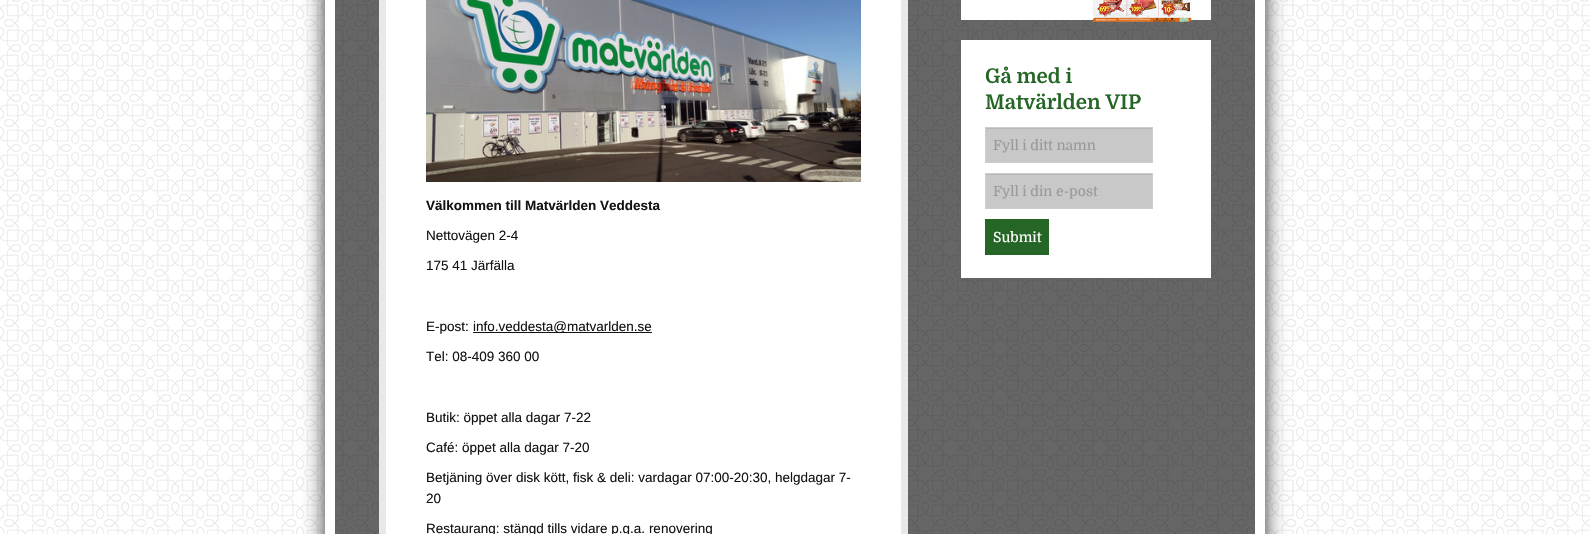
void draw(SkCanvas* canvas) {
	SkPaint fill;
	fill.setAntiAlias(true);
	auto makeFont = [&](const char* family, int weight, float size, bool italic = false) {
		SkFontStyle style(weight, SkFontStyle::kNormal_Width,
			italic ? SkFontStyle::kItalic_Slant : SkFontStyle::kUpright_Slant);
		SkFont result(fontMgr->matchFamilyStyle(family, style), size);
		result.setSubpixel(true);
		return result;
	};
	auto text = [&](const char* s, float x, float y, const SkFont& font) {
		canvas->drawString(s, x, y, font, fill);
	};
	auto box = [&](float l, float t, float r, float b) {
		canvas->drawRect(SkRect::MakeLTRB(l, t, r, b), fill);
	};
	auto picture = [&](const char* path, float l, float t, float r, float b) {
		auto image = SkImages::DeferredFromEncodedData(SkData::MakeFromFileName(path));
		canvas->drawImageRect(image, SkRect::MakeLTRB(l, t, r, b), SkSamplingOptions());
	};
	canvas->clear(0xFFFFFFFF);
	picture("image0.png", 0, 0, 1590, 534);
	canvas->save();
	canvas->clipPath(SkPathBuilder(SkPathFillType::kEvenOdd).moveTo(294, 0).lineTo(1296, 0).lineTo(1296, 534).lineTo(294, 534).close().moveTo(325, -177).lineTo(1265, -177).lineTo(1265, 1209).lineTo(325, 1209).close().detach(), true);
	fill.setColor(0xFF333333);
	fill.setMaskFilter(SkMaskFilter::MakeBlur(kNormal_SkBlurStyle, 10));
	canvas->drawRect(SkRect::MakeLTRB(325, -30, 1265, 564), fill);
	fill.setMaskFilter(nullptr);
	canvas->restore();
	fill.setColor(0x99000000);
	box(335, 0, 1255, 534);
	fill.setColor(0xFFFFFFFF);
	box(1255, 0, 1265, 534);
	box(325, 0, 335, 534);
	box(961, 0, 1211, 20);
	picture("image1.png", 1092, 0, 1192, 22);
	box(961, 40, 1211, 278);
	fill.setColor(0xFFC8C8C8);
	box(986, 129, 1152, 162);
	fill.setColor(0xFFB9B9B9);
	box(986, 128, 1152, 129);
	fill.setStyle(SkPaint::kStroke_Style);
	fill.setStrokeWidth(1);
	fill.setColor(0xFFCCCCCC);
	canvas->drawRect(SkRect::MakeLTRB(985.5f, 127.5f, 1152.5f, 162.5f), fill);
	fill.setStyle(SkPaint::kFill_Style);
	fill.setColor(0xFFC8C8C8);
	box(986, 175, 1152, 208);
	fill.setColor(0xFFB9B9B9);
	box(986, 174, 1152, 175);
	fill.setStyle(SkPaint::kStroke_Style);
	fill.setColor(0xFFCCCCCC);
	canvas->drawRect(SkRect::MakeLTRB(985.5f, 173.5f, 1152.5f, 208.5f), fill);
	fill.setStyle(SkPaint::kFill_Style);
	fill.setColor(0xFF256626);
	box(985, 219, 1049, 255);
	fill.setColor(0xD9FFFFFF);
	box(379, 0, 908, 534);
	fill.setColor(0xFFFFFFFF);
	box(386, 0, 901, 534);
	picture("image2.png", 426, 0, 861, 182);
	fill.setColor(0xFF131313);
	box(473, 332, 652, 333);
	auto font1 = makeFont("Domine", 700, 20.25f);
	fill.setColor(0xFF256626);
	text("Gå med i", 985, 83, font1);
	text("Matvärlden VIP", 985, 109, font1);
	auto font2 = makeFont("Domine", 400, 14);
	fill.setColor(0xFF999999);
	text("Fyll i ditt namn", 993, 150, font2);
	text("Fyll i din e-post", 993, 196, font2);
	fill.setColor(0xFFFFFFFF);
	text("Submit", 993, 242, font2);
	auto font3 = makeFont("Liberation Sans", 700, 13.5f);
	fill.setColor(0xFF131313);
	text("Välkommen till Matvärlden Veddesta", 426, 210, font3);
	auto font4 = makeFont("Liberation Sans", 400, 13.5f);
	text("Nettovägen 2-4", 426, 240, font4);
	text("175 41 Järfälla", 426, 270, font4);
	text("E-post:", 426, 331, font4);
	text("info.veddesta@matvarlden.se", 473, 331, font4);
	text("Tel: 08-409 360 00", 426, 361, font4);
	text("Butik: öppet alla dagar 7-22", 426, 422, font4);
	text("Café: öppet alla dagar 7-20", 426, 452, font4);
	text("Betjäning över disk kött, fisk & deli: vardagar 07:00-20:30, helgdagar 7-", 426, 482, font4);
	text("20", 426, 503, font4);
	text("Restaurang: stängd tills vidare p.g.a. renovering", 426, 533, font4);
}
